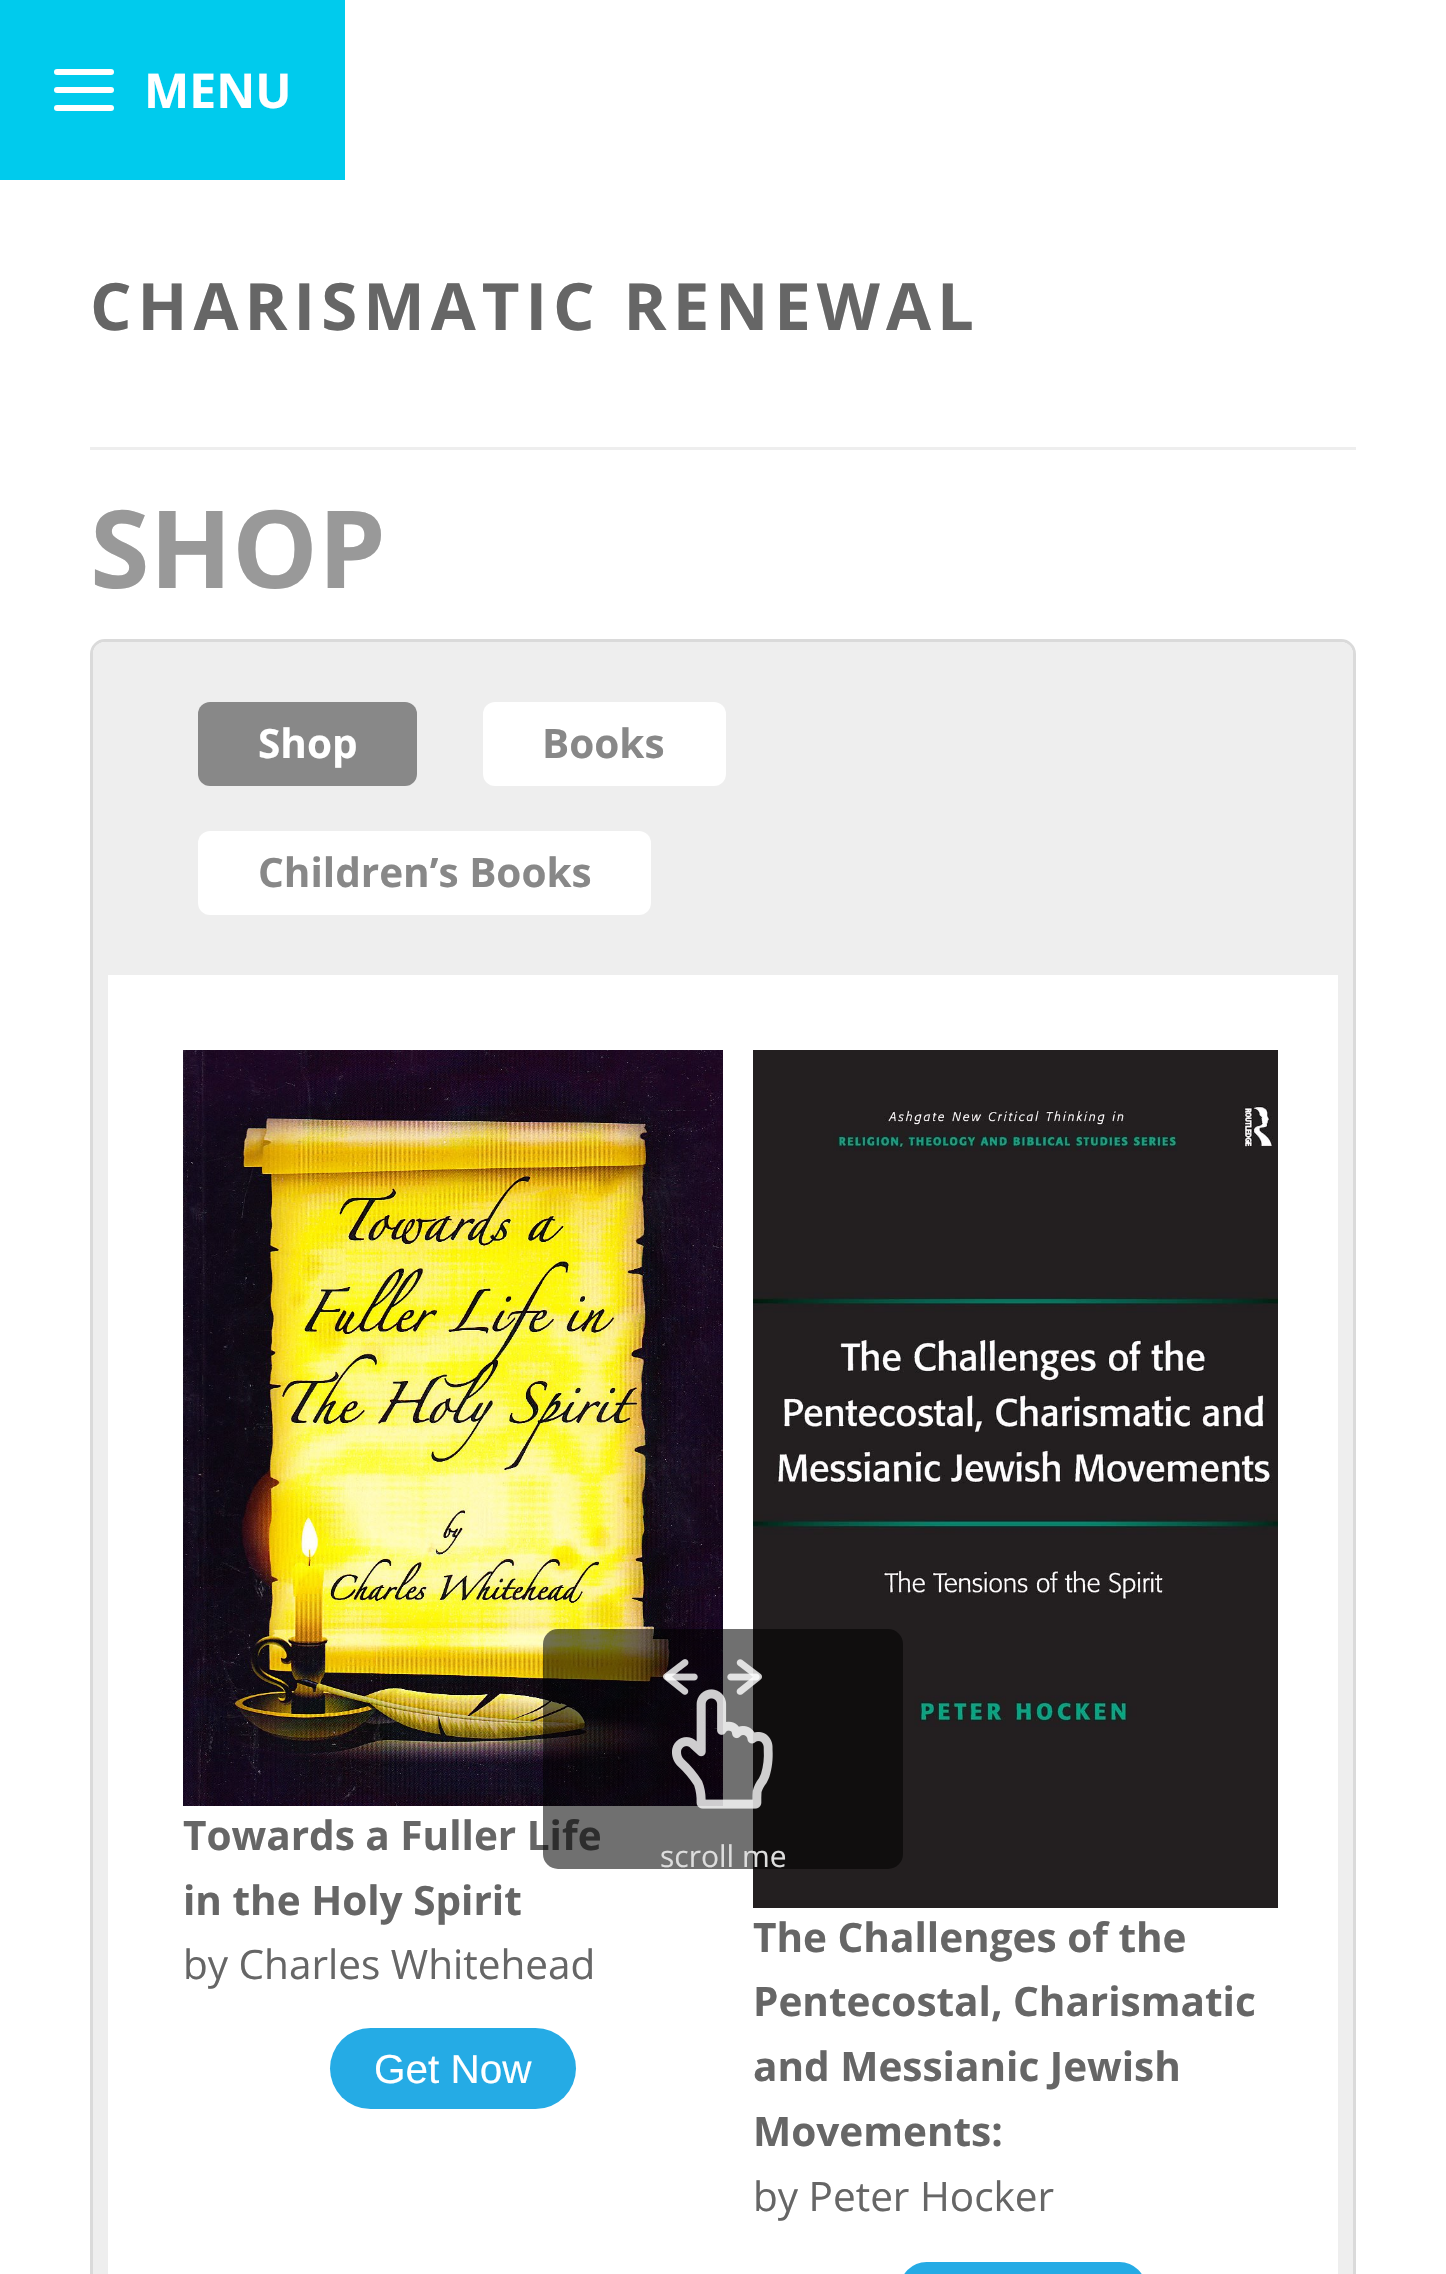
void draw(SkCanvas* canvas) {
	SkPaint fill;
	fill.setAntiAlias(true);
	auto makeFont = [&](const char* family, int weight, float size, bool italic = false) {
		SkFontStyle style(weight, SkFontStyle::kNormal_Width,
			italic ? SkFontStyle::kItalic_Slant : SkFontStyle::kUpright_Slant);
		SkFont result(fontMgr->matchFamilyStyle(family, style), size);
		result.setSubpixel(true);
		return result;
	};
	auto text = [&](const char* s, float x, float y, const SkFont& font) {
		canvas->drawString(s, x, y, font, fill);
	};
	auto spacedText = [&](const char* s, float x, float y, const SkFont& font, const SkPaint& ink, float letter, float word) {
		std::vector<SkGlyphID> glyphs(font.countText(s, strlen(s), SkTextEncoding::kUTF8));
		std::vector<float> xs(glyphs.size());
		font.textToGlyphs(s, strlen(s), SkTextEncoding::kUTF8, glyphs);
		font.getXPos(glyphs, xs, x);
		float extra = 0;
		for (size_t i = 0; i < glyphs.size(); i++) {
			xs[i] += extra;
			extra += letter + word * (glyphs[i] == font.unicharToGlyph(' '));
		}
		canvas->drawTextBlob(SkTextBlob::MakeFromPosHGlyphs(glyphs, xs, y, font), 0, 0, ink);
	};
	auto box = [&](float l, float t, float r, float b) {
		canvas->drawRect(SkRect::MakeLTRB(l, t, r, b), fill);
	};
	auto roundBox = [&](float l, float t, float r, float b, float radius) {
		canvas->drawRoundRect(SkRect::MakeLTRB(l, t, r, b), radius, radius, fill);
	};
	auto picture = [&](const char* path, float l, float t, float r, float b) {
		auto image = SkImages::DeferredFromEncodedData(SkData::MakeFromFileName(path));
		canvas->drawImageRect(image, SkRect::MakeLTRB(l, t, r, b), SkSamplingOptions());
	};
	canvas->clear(0xFFFFFFFF);
	fill.setColor(0xFF00CBED);
	box(0, 0, 345, 180);
	fill.setColor(0xFFFFFFFF);
	roundBox(54, 69, 114, 75, 3);
	roundBox(54, 87, 114, 93, 3);
	roundBox(54, 105, 114, 111, 3);
	fill.setColor(0xFFEEEEEE);
	box(90, 447, 1356, 450);
	fill.setStyle(SkPaint::kStroke_Style);
	fill.setStrokeWidth(3);
	fill.setColor(0xFFDADADA);
	canvas->drawRoundRect(SkRect::MakeLTRB(91.5f, 640.5f, 1354.5f, 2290.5f), 13.5f, 13.5f, fill);
	fill.setStyle(SkPaint::kFill_Style);
	fill.setColor(0xFFFFFFFF);
	canvas->drawRoundRect(SkRect::MakeLTRB(100.5f, 649.5f, 1345.5f, 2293.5f), 4.5f, 4.5f, fill);
	fill.setStyle(SkPaint::kStroke_Style);
	fill.setStrokeWidth(15);
	fill.setColor(0xFFEEEEEE);
	canvas->drawRoundRect(SkRect::MakeLTRB(100.5f, 649.5f, 1345.5f, 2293.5f), 4.5f, 4.5f, fill);
	fill.setStyle(SkPaint::kFill_Style);
	box(108, 657, 1338, 975);
	fill.setColor(0xFF888888);
	roundBox(198, 702, 417, 786, 12);
	fill.setColor(0xFFFFFFFF);
	roundBox(483, 702, 726, 786, 12);
	roundBox(198, 831, 651, 915, 12);
	picture("image0.png", 183, 1050, 723, 1806);
	fill.setColor(0xFF25ABE5);
	roundBox(330, 2028, 576, 2109, 40.5f);
	picture("image3.png", 753, 1050, 1278, 1908);
	roundBox(900, 2262, 1146, 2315, 40.5f);
	auto font1 = makeFont("Open Sans", 700, 48);
	fill.setColor(0xFFFFFFFF);
	text("MENU", 144, 108, font1);
	auto font2 = makeFont("Open Sans", 700, 65.25f);
	fill.setColor(0xFF666666);
	spacedText("CHARISMATIC RENEWAL", 90, 330, font2, fill, 6, 0);
	auto font3 = makeFont("Open Sans", 700, 108);
	fill.setColor(0xFF999999);
	text("SHOP", 90, 588, font3);
	auto font4 = makeFont("Open Sans", 700, 40.5f);
	fill.setColor(0xFFFFFFFF);
	text("Shop", 258, 758, font4);
	fill.setColor(0xFF888888);
	text("Books", 542, 758, font4);
	text("Children’s Books", 258, 887, font4);
	fill.setColor(0xFF666666);
	text("Towards a Fuller Life", 183, 1850, font4);
	text("in the Holy Spirit", 183, 1915, font4);
	auto font5 = makeFont("Open Sans", 400, 40.5f);
	text("by Charles Whitehead", 183, 1979, font5);
	auto font6 = makeFont("Liberation Sans", 400, 40.5f);
	fill.setColor(0xFFFFFFFF);
	text("Get Now", 374, 2083, font6);
	fill.setColor(0x8F000000);
	roundBox(543, 1629, 903, 1869, 15);
	picture("image2.png", 672, 1689, 773, 1809);
	picture("image1.png", 663, 1659, 762, 1695);
	auto font7 = makeFont("Open Sans", 400, 30);
	fill.setColor(0xFFDDDDDD);
	text("scroll me", 660, 1867, font7);
	fill.setColor(0xFF666666);
	text("The Challenges of the", 753, 1952, font4);
	text("Pentecostal, Charismatic", 753, 2016, font4);
	text("and Messianic Jewish", 753, 2081, font4);
	text("Movements:", 753, 2146, font4);
	text("by Peter Hocker", 753, 2211, font5);
}
